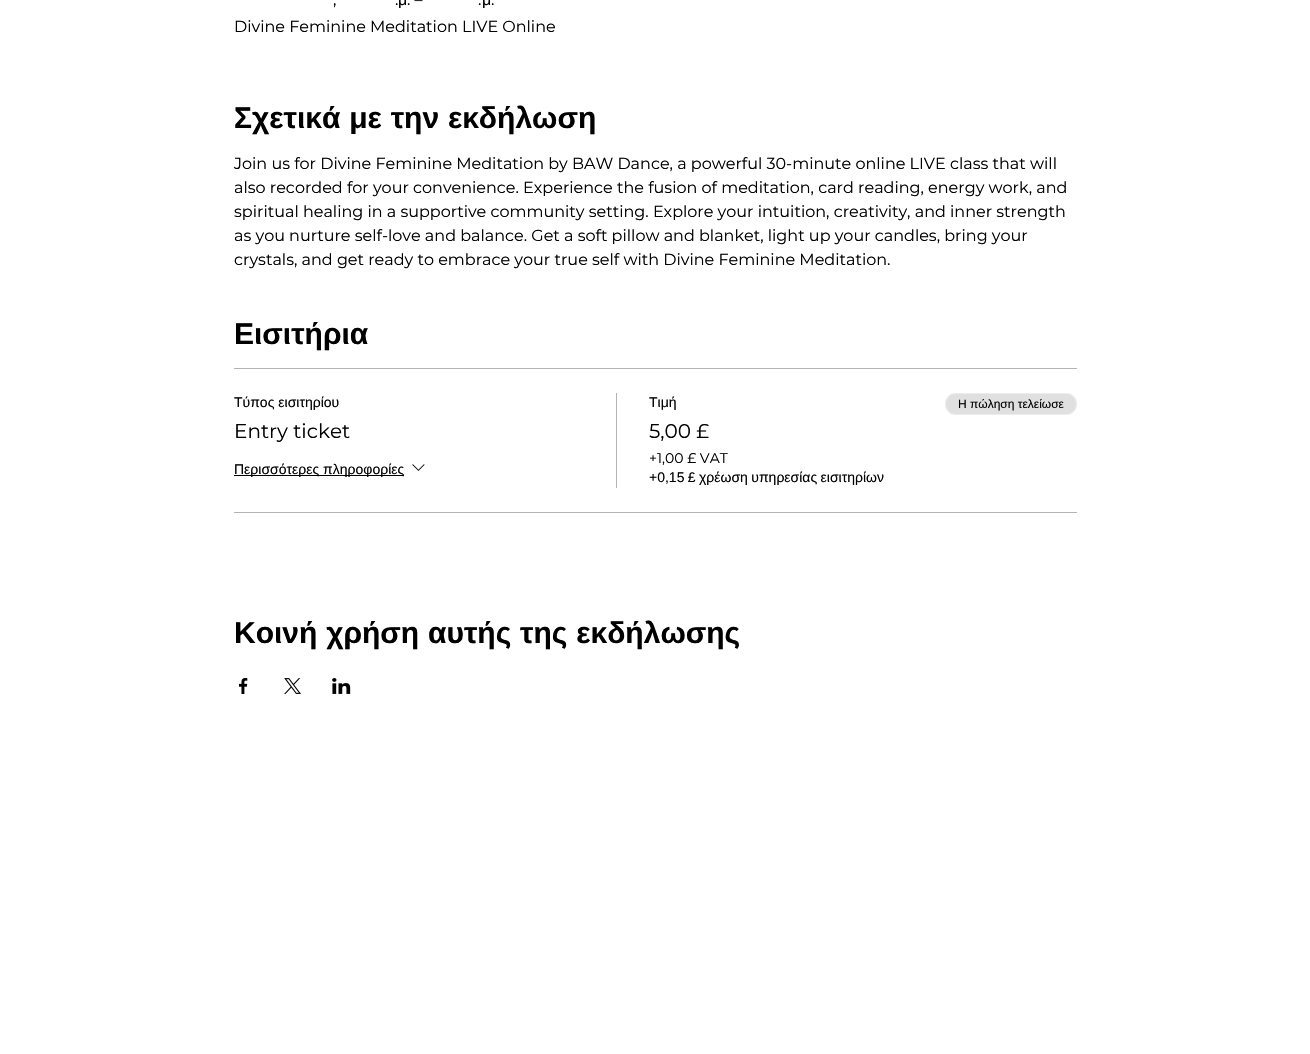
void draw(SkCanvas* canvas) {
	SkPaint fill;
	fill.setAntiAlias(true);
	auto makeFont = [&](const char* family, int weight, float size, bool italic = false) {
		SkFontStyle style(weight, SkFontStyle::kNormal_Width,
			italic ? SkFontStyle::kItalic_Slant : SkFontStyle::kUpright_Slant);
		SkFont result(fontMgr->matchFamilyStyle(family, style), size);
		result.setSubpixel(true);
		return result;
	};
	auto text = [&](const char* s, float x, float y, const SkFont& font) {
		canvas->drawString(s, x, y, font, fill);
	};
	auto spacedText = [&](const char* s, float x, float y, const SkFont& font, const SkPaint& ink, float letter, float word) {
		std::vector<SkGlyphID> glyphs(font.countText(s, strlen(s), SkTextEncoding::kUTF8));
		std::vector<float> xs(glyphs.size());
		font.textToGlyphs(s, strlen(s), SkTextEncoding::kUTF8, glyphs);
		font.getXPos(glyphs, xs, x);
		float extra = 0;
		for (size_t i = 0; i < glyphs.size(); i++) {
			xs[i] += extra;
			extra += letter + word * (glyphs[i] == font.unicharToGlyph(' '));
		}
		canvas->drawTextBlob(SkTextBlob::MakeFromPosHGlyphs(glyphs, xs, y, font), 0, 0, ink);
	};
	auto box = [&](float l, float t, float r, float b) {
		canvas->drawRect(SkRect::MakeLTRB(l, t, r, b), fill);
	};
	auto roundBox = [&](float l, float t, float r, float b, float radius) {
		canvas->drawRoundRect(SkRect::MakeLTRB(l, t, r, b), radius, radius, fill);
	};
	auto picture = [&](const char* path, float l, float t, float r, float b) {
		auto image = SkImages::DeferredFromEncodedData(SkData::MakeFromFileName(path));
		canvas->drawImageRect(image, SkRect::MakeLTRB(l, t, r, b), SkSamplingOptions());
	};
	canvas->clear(0xFFFFFFFF);
	fill.setColor(0xFFB3B3B3);
	box(234, 368, 1077, 369);
	box(234, 512, 1077, 513);
	fill.setColor(0xFF000000);
	box(234, 475, 404, 476);
	picture("image0.png", 412, 464, 425, 471);
	fill.setColor(0xFFB3B3B3);
	box(616, 393, 617, 488);
	fill.setColor(0xFFE0E0E0);
	roundBox(945, 393, 1077, 415, 11);
	fill.setStyle(SkPaint::kStroke_Style);
	fill.setStrokeWidth(1);
	fill.setColor(0x66FFFFFF);
	canvas->drawRoundRect(SkRect::MakeLTRB(945.5f, 393.5f, 1076.5f, 414.5f), 10.5f, 10.5f, fill);
	picture("image1.png", 239, 678, 248, 694);
	picture("image2.png", 284, 678, 301, 694);
	picture("image3.png", 332, 678, 351, 694);
	auto font1 = makeFont("Montserrat", 400, 16);
	fill.setStyle(SkPaint::kFill_Style);
	fill.setColor(0xFF000000);
	text(",", 333, 5, font1);
	text(".", 395, 5, font1);
	auto font2 = makeFont("Liberation Sans", 400, 16);
	text("μ", 398, 5, font2);
	text(". –", 407, 5, font1);
	text(".", 478, 5, font1);
	text("μ", 482, 5, font2);
	text(".", 491, 5, font1);
	text("Divine Feminine Meditation LIVE Online", 234, 32, font1);
	auto font3 = makeFont("Liberation Sans", 700, 30);
	spacedText("Σχετικά με την εκδήλωση", 234, 128, font3, fill, 0, 0.5f);
	text("Join us for Divine Feminine Meditation by BAW Dance, a powerful 30-minute online LIVE class that will", 234, 169, font1);
	text("also recorded for your convenience. Experience the fusion of meditation, card reading, energy work, and", 234, 193, font1);
	text("spiritual healing in a supportive community setting. Explore your intuition, creativity, and inner strength", 234, 217, font1);
	text("as you nurture self-love and balance. Get a soft pillow and blanket, light up your candles, bring your", 234, 241, font1);
	text("crystals, and get ready to embrace your true self with Divine Feminine Meditation.", 234, 265, font1);
	text("Εισιτήρια", 234, 344, font3);
	auto font4 = makeFont("Liberation Sans", 400, 14);
	text("Τύπος εισιτηρίου", 234, 407, font4);
	auto font5 = makeFont("Montserrat", 400, 20);
	text("Entry ticket", 234, 438, font5);
	text("Περισσότερες πληροφορίες", 234, 474, font4);
	text("Τιμή", 649, 407, font4);
	text("5,00 £", 649, 438, font5);
	auto font6 = makeFont("Montserrat", 400, 14);
	text("+1,00 £ VAT", 649, 463, font6);
	spacedText("+0,15 £ χρέωση υπηρεσίας εισιτηρίων", 649, 482, font4, fill, 0, -0.5f);
	auto font7 = makeFont("Liberation Sans", 400, 12);
	text("Η πώληση τελείωσε", 958, 408, font7);
	spacedText("Κοινή χρήση αυτής της εκδήλωσης", 234, 643, font3, fill, 0, 0.5f);
}
